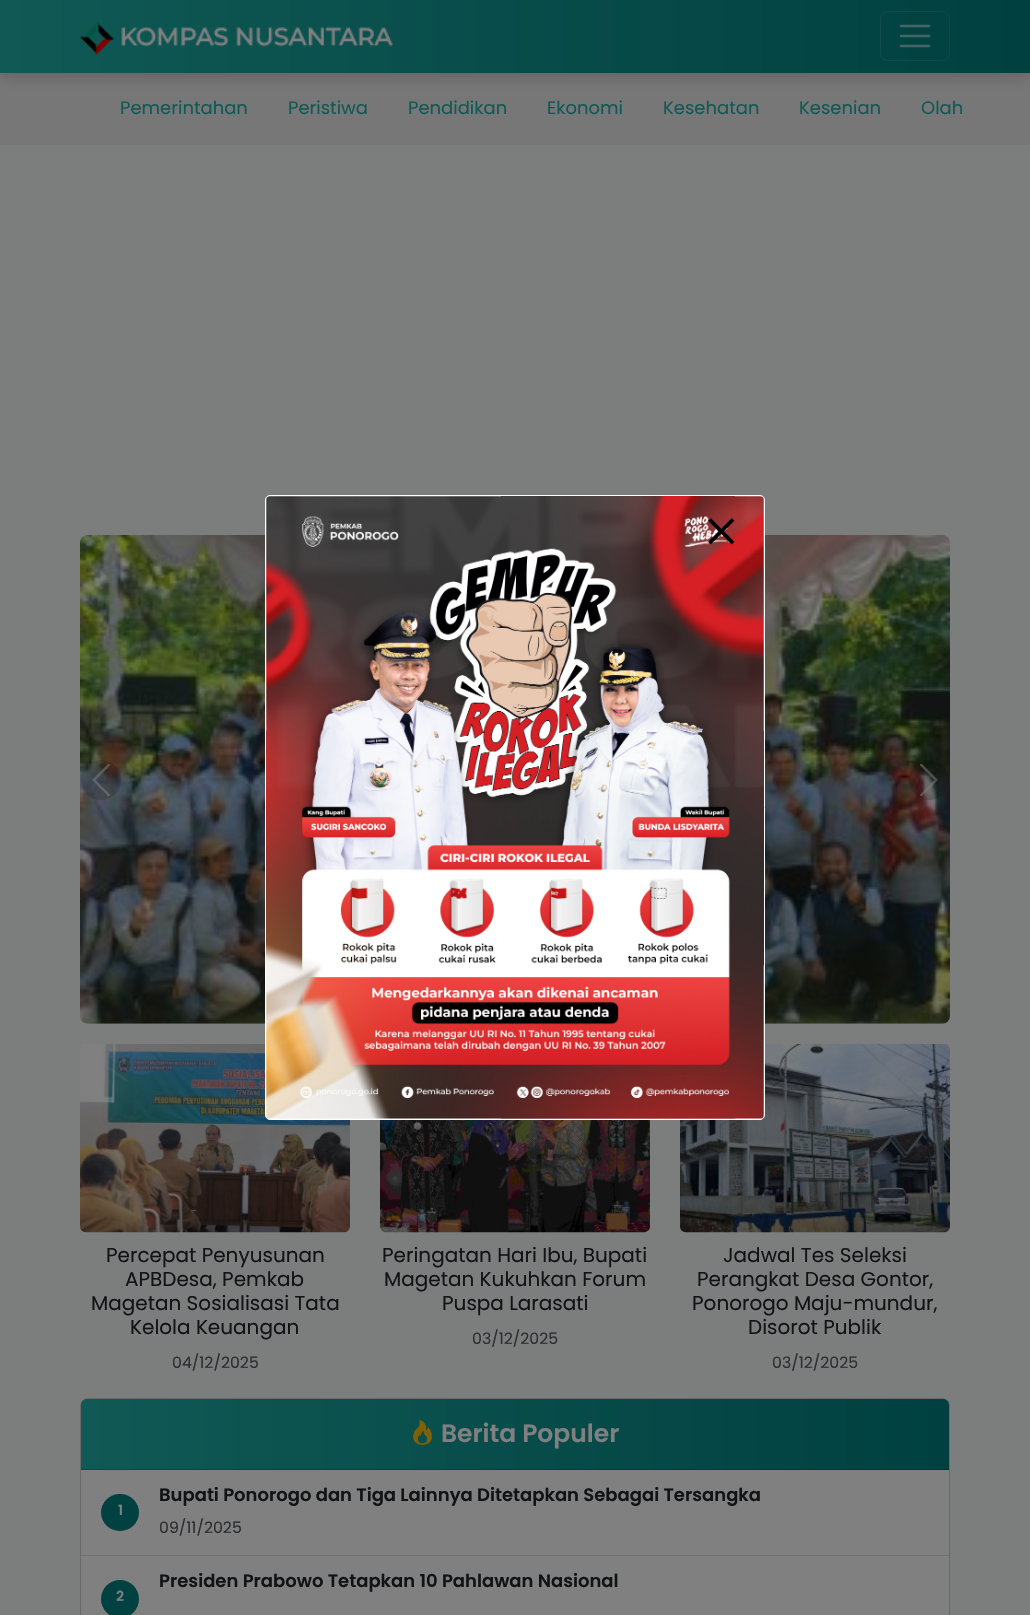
void draw(SkCanvas* canvas) {
	SkPaint fill;
	fill.setAntiAlias(true);
	auto makeFont = [&](const char* family, int weight, float size, bool italic = false) {
		SkFontStyle style(weight, SkFontStyle::kNormal_Width,
			italic ? SkFontStyle::kItalic_Slant : SkFontStyle::kUpright_Slant);
		SkFont result(fontMgr->matchFamilyStyle(family, style), size);
		result.setSubpixel(true);
		return result;
	};
	auto text = [&](const char* s, float x, float y, const SkFont& font) {
		canvas->drawString(s, x, y, font, fill);
	};
	auto box = [&](float l, float t, float r, float b) {
		canvas->drawRect(SkRect::MakeLTRB(l, t, r, b), fill);
	};
	auto roundBox = [&](float l, float t, float r, float b, float radius) {
		canvas->drawRoundRect(SkRect::MakeLTRB(l, t, r, b), radius, radius, fill);
	};
	auto picture = [&](const char* path, float l, float t, float r, float b) {
		auto image = SkImages::DeferredFromEncodedData(SkData::MakeFromFileName(path));
		canvas->drawImageRect(image, SkRect::MakeLTRB(l, t, r, b), SkSamplingOptions());
	};
	canvas->clear(0xFF7C7D7D);
	fill.setColor(0xFF777777);
	box(0, 73, 1030, 145);
	fill.setColor(0x26000000);
	fill.setMaskFilter(SkMaskFilter::MakeBlur(kNormal_SkBlurStyle, 6));
	canvas->drawRect(SkRect::MakeLTRB(0, 5, 1030, 78), fill);
	fill.setMaskFilter(nullptr);
	{
		const SkColor colors[] = {0xFF105955, 0xFF004040};
		const float stops[] = {0, 1};
		const SkPoint ends[] = {{0, 36}, {1030, 36}};
		fill.setShader(SkGradientShader::MakeLinear(ends, colors, stops, 2, SkTileMode::kClamp));
		fill.setAlpha(255);
	}
	box(0, 0, 1030, 73);
	picture("image0.png", 80, 21, 393, 55);
	fill.setStyle(SkPaint::kStroke_Style);
	fill.setStrokeWidth(1);
	fill.setShader(nullptr);
	fill.setColor(0x1A808080);
	canvas->drawRoundRect(SkRect::MakeLTRB(880.5f, 11.5f, 949.5f, 60.5f), 7.5f, 7.5f, fill);
	fill.setStrokeWidth(2.5f);
	fill.setStrokeCap(SkPaint::kRound_Cap);
	fill.setColor(0xFF476464);
	canvas->drawPath(SkPathBuilder().moveTo(901, 26).lineTo(929, 26).moveTo(901, 36).lineTo(929, 36).moveTo(901, 46).lineTo(929, 46).detach(), fill);
	picture("image3.png", 80, 535, 950, 1024);
	picture("image6.png", 80, 1044, 350, 1233);
	picture("image8.png", 680, 1043, 950, 1233);
	fill.setStyle(SkPaint::kFill_Style);
	fill.setColor(0xFFFFFFFF);
	canvas->drawRoundRect(SkRect::MakeLTRB(265.5f, 495.5f, 764.5f, 1119.5f), 4.5f, 4.5f, fill);
	fill.setStyle(SkPaint::kStroke_Style);
	fill.setStrokeWidth(1);
	fill.setStrokeCap(SkPaint::kButt_Cap);
	canvas->drawRoundRect(SkRect::MakeLTRB(265.5f, 495.5f, 764.5f, 1119.5f), 4.5f, 4.5f, fill);
	picture("image1.png", 266, 496, 764, 1119);
	picture("image2.png", 708, 518, 735, 545);
	fill.setStyle(SkPaint::kFill_Style);
	fill.setColor(0x26000000);
	canvas->drawCircle(101, 780, 20, fill);
	picture("image4.png", 92, 763, 110, 797);
	canvas->drawCircle(929, 780, 20, fill);
	picture("image5.png", 920, 763, 938, 797);
	picture("image7.png", 380, 1120, 650, 1233);
	fill.setColor(0xFF808080);
	roundBox(80, 1398, 950, 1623, 8);
	fill.setStyle(SkPaint::kStroke_Style);
	fill.setColor(0x2E000000);
	canvas->drawRoundRect(SkRect::MakeLTRB(80.5f, 1398.5f, 949.5f, 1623.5f), 7.5f, 7.5f, fill);
	fill.setStyle(SkPaint::kFill_Style);
	{
		const SkColor colors[] = {0xFF105955, 0xFF004040};
		const float stops[] = {0, 1};
		const SkPoint ends[] = {{81, 1434}, {949, 1434}};
		fill.setShader(SkGradientShader::MakeLinear(ends, colors, stops, 2, SkTileMode::kClamp));
		fill.setAlpha(255);
	}
	canvas->drawPath(SkPathBuilder().moveTo(87, 1399).lineTo(943, 1399).cubicTo(946.5f, 1399, 949, 1401.5f, 949, 1405).lineTo(949, 1470).lineTo(81, 1470).lineTo(81, 1405).cubicTo(81, 1401.5f, 83.5f, 1399, 87, 1399).close().detach(), fill);
	{
		const SkColor colors[] = {0xFF0D4946, 0xFF003535};
		const float stops[] = {0, 1};
		const SkPoint ends[] = {{81, 1434}, {949, 1434}};
		fill.setShader(SkGradientShader::MakeLinear(ends, colors, stops, 2, SkTileMode::kClamp));
		fill.setAlpha(255);
	}
	box(81, 1469, 949, 1470);
	picture("image9.png", 413, 1420, 432, 1445);
	fill.setShader(nullptr);
	fill.setColor(0xFF6F7173);
	box(81, 1555, 949, 1556);
	fill.setColor(0xFF014141);
	roundBox(101, 1494, 139, 1531, 18.5f);
	canvas->drawCircle(120, 1599, 19, fill);
	auto font1 = makeFont("Poppins", 400, 18);
	fill.setColor(0xFF105955);
	text("Pemerintahan", 120, 114, font1);
	text("Peristiwa", 288, 114, font1);
	text("Pendidikan", 408, 114, font1);
	text("Ekonomi", 547, 114, font1);
	text("Kesehatan", 663, 114, font1);
	text("Kesenian", 799, 114, font1);
	text("Olah", 921, 114, font1);
	auto font2 = makeFont("Poppins", 400, 20);
	fill.setColor(0xFF111315);
	text("Percepat Penyusunan", 106, 1262, font2);
	text("APBDesa, Pemkab", 125, 1286, font2);
	text("Magetan Sosialisasi Tata", 91, 1310, font2);
	text("Kelola Keuangan", 130, 1334, font2);
	auto font3 = makeFont("Poppins", 400, 15.75f);
	fill.setColor(0xFF2C2D2F);
	text("04/12/2025", 172, 1368, font3);
	fill.setColor(0xFF111315);
	text("Peringatan Hari Ibu, Bupati", 382, 1262, font2);
	text("Magetan Kukuhkan Forum", 384, 1286, font2);
	text("Puspa Larasati", 442, 1310, font2);
	fill.setColor(0xFF2C2D2F);
	text("03/12/2025", 472, 1344, font3);
	fill.setColor(0xFF111315);
	text("Jadwal Tes Seleksi", 723, 1262, font2);
	text("Perangkat Desa Gontor,", 697, 1286, font2);
	text("Ponorogo Maju-mundur,", 692, 1310, font2);
	text("Disorot Publik", 748, 1334, font2);
	fill.setColor(0xFF2C2D2F);
	text("03/12/2025", 772, 1368, font3);
	auto font4 = makeFont("Poppins", 600, 25);
	fill.setColor(0xFF808080);
	text("Berita Populer", 441, 1442, font4);
	auto font5 = makeFont("Poppins", 600, 14);
	text("1", 118, 1515, font5);
	auto font6 = makeFont("Poppins", 600, 18);
	fill.setColor(0xFF111315);
	text("Bupati Ponorogo dan Tiga Lainnya Ditetapkan Sebagai Tersangka", 159, 1501, font6);
	fill.setColor(0xFF2C2D2F);
	text("09/11/2025", 159, 1533, font3);
	fill.setColor(0xFF111315);
	text("Presiden Prabowo Tetapkan 10 Pahlawan Nasional", 159, 1587, font6);
	fill.setColor(0xFF808080);
	text("2", 116, 1601, font5);
}
